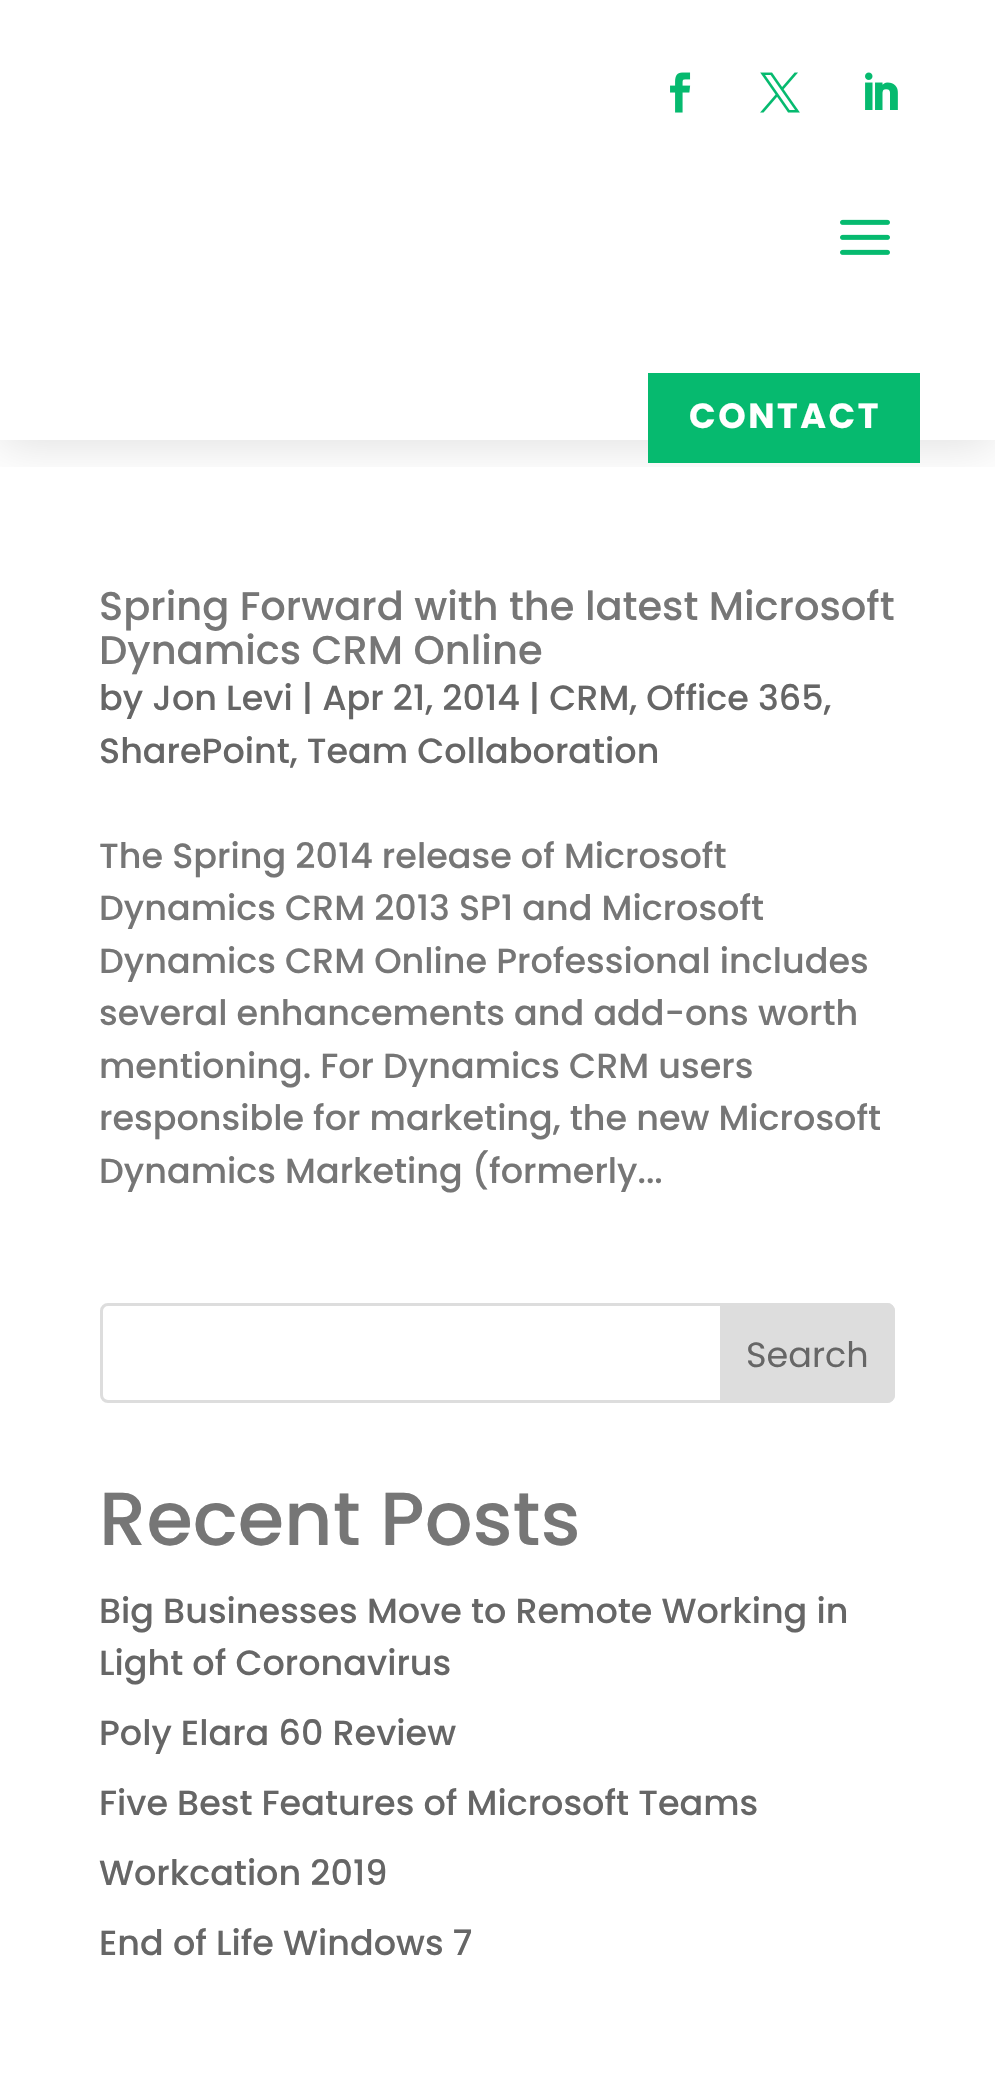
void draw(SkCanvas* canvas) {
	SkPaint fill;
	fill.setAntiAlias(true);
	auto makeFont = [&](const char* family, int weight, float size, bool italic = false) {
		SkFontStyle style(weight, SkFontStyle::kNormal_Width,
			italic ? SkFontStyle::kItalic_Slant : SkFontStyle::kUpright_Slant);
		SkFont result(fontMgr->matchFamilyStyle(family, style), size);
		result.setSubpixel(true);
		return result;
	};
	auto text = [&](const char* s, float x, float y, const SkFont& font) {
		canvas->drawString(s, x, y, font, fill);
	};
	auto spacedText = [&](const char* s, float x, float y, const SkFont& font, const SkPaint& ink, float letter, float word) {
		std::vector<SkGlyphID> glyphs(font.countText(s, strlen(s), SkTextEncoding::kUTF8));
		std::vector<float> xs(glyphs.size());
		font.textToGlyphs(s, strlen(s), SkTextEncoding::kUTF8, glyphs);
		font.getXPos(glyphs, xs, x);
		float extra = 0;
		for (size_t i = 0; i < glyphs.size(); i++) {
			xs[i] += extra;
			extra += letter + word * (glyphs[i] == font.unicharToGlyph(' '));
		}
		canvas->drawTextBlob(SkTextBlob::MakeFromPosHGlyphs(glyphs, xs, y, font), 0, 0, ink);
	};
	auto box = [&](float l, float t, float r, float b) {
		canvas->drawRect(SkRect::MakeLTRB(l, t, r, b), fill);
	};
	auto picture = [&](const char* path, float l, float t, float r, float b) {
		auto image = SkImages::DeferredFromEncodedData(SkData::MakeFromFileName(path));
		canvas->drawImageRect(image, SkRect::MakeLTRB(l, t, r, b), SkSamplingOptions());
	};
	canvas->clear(0xFFFFFFFF);
	canvas->save();
	canvas->clipRect(SkRect::MakeLTRB(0, 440, 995, 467));
	fill.setColor(0x1F000000);
	fill.setMaskFilter(SkMaskFilter::MakeBlur(kNormal_SkBlurStyle, 22.5f));
	canvas->drawRect(SkRect::MakeLTRB(0, 5, 995, 445), fill);
	fill.setMaskFilter(nullptr);
	canvas->restore();
	picture("image0.png", 670, 72, 691, 113);
	picture("image1.png", 760, 72, 800, 113);
	picture("image2.png", 865, 72, 898, 110);
	picture("image3.png", 840, 219, 890, 255);
	fill.setColor(0xFF06BA6F);
	box(648, 373, 920, 463);
	fill.setStyle(SkPaint::kStroke_Style);
	fill.setStrokeWidth(3);
	fill.setColor(0xFFDDDDDD);
	canvas->drawRoundRect(SkRect::MakeLTRB(101.5f, 1304.5f, 893.5f, 1401.5f), 6.5f, 6.5f, fill);
	fill.setStyle(SkPaint::kFill_Style);
	canvas->drawPath(SkPathBuilder().moveTo(721.5f, 1304.5f).lineTo(887, 1304.5f).cubicTo(890.5f, 1304.5f, 893.5f, 1307.5f, 893.5f, 1311).lineTo(893.5f, 1395).cubicTo(893.5f, 1398.5f, 890.5f, 1401.5f, 887, 1401.5f).lineTo(721.5f, 1401.5f).close().detach(), fill);
	fill.setStyle(SkPaint::kStroke_Style);
	canvas->drawPath(SkPathBuilder().moveTo(721.5f, 1304.5f).lineTo(887, 1304.5f).cubicTo(890.5f, 1304.5f, 893.5f, 1307.5f, 893.5f, 1311).lineTo(893.5f, 1395).cubicTo(893.5f, 1398.5f, 890.5f, 1401.5f, 887, 1401.5f).lineTo(721.5f, 1401.5f).close().detach(), fill);
	auto font1 = makeFont("Poppins", 700, 35);
	fill.setStyle(SkPaint::kFill_Style);
	fill.setColor(0xFFFFFFFF);
	spacedText("CONTACT", 689, 428, font1, fill, 2.5f, 0);
	auto font2 = makeFont("Poppins", 500, 40);
	fill.setColor(0xFF767676);
	text("Spring Forward with the latest Microsoft", 99, 620, font2);
	text("Dynamics CRM Online", 99, 664, font2);
	auto font3 = makeFont("Poppins", 500, 35);
	fill.setColor(0xFF666666);
	text("by Jon Levi | Apr 21, 2014 | CRM, Office 365,", 99, 710, font3);
	text("SharePoint, Team Collaboration", 99, 763, font3);
	fill.setColor(0xFF767676);
	text("The Spring 2014 release of Microsoft", 99, 868, font3);
	text("Dynamics CRM 2013 SP1 and Microsoft", 99, 920, font3);
	text("Dynamics CRM Online Professional includes", 99, 973, font3);
	text("several enhancements and add-ons worth", 99, 1025, font3);
	text("mentioning. For Dynamics CRM users", 99, 1078, font3);
	text("responsible for marketing, the new Microsoft", 99, 1130, font3);
	text("Dynamics Marketing (formerly...", 99, 1183, font3);
	auto font4 = makeFont("Poppins", 400, 35);
	fill.setColor(0xFF666666);
	text("Search", 746, 1367, font4);
	auto font5 = makeFont("Poppins", 500, 75);
	fill.setColor(0xFF767676);
	text("Recent Posts", 99, 1545, font5);
	fill.setColor(0xFF666666);
	text("Big Businesses Move to Remote Working in", 99, 1623, font3);
	text("Light of Coronavirus", 99, 1675, font3);
	text("Poly Elara 60 Review", 99, 1745, font3);
	text("Five Best Features of Microsoft Teams", 99, 1815, font3);
	text("Workcation 2019", 99, 1885, font3);
	text("End of Life Windows 7", 99, 1955, font3);
}
